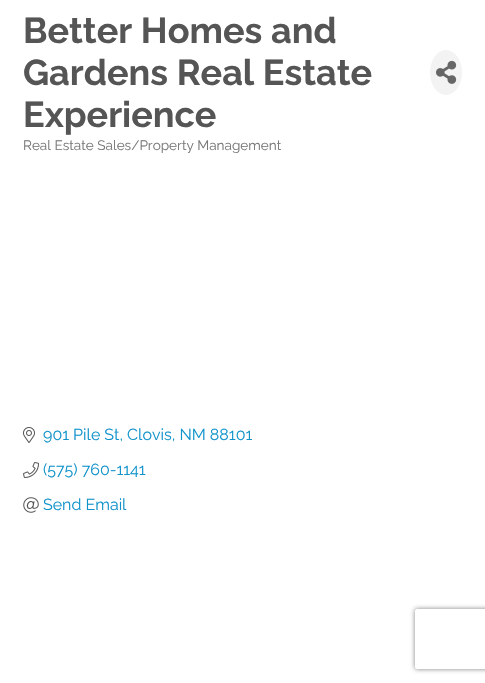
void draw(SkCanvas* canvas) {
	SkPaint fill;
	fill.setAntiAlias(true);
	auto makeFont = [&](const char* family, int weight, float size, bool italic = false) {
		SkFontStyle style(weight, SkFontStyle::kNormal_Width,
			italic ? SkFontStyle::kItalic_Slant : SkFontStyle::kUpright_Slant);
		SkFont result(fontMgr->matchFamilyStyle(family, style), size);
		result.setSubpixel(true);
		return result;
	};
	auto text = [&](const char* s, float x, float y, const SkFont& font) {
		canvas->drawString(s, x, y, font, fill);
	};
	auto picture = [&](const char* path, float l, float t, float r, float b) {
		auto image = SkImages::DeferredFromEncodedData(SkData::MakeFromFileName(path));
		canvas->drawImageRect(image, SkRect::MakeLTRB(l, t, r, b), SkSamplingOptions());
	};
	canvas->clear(0xFFFFFFFF);
	fill.setColor(0xFFF3F3F3);
	canvas->drawOval(SkRect::MakeLTRB(430, 50, 462, 95), fill);
	picture("image0.png", 436, 60, 457, 84);
	picture("image1.png", 23, 427, 35, 443);
	picture("image2.png", 23, 462, 39, 478);
	picture("image3.png", 23, 497, 39, 513);
	canvas->save();
	canvas->clipPath(SkPathBuilder(SkPathFillType::kEvenOdd).moveTo(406, 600).lineTo(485, 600).lineTo(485, 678).lineTo(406, 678).close().moveTo(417, 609).lineTo(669, 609).cubicTo(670, 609, 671, 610, 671, 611).lineTo(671, 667).cubicTo(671, 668, 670, 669, 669, 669).lineTo(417, 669).cubicTo(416, 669, 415, 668, 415, 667).lineTo(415, 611).cubicTo(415, 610, 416, 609, 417, 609).close().detach(), true);
	fill.setColor(0xFF808080);
	fill.setMaskFilter(SkMaskFilter::MakeBlur(kNormal_SkBlurStyle, 2.5f));
	canvas->drawRoundRect(SkRect::MakeLTRB(415, 609, 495, 669), 2, 2, fill);
	fill.setMaskFilter(nullptr);
	canvas->restore();
	auto font1 = makeFont("Raleway", 700, 36);
	fill.setColor(0xFF555555);
	text("Better Homes and", 23, 43, font1);
	text("Gardens Real Estate", 23, 85, font1);
	text("Experience", 23, 127, font1);
	auto font2 = makeFont("Raleway", 400, 13.6f);
	fill.setColor(0xFF777777);
	text("Real Estate Sales/Property Management", 23, 150, font2);
	auto font3 = makeFont("Raleway", 400, 16);
	fill.setColor(0xFF1193CA);
	text("901 Pile St, Clovis, NM 88101", 43, 440, font3);
	text("(575) 760-1141", 43, 475, font3);
	text("Send Email", 43, 510, font3);
}
